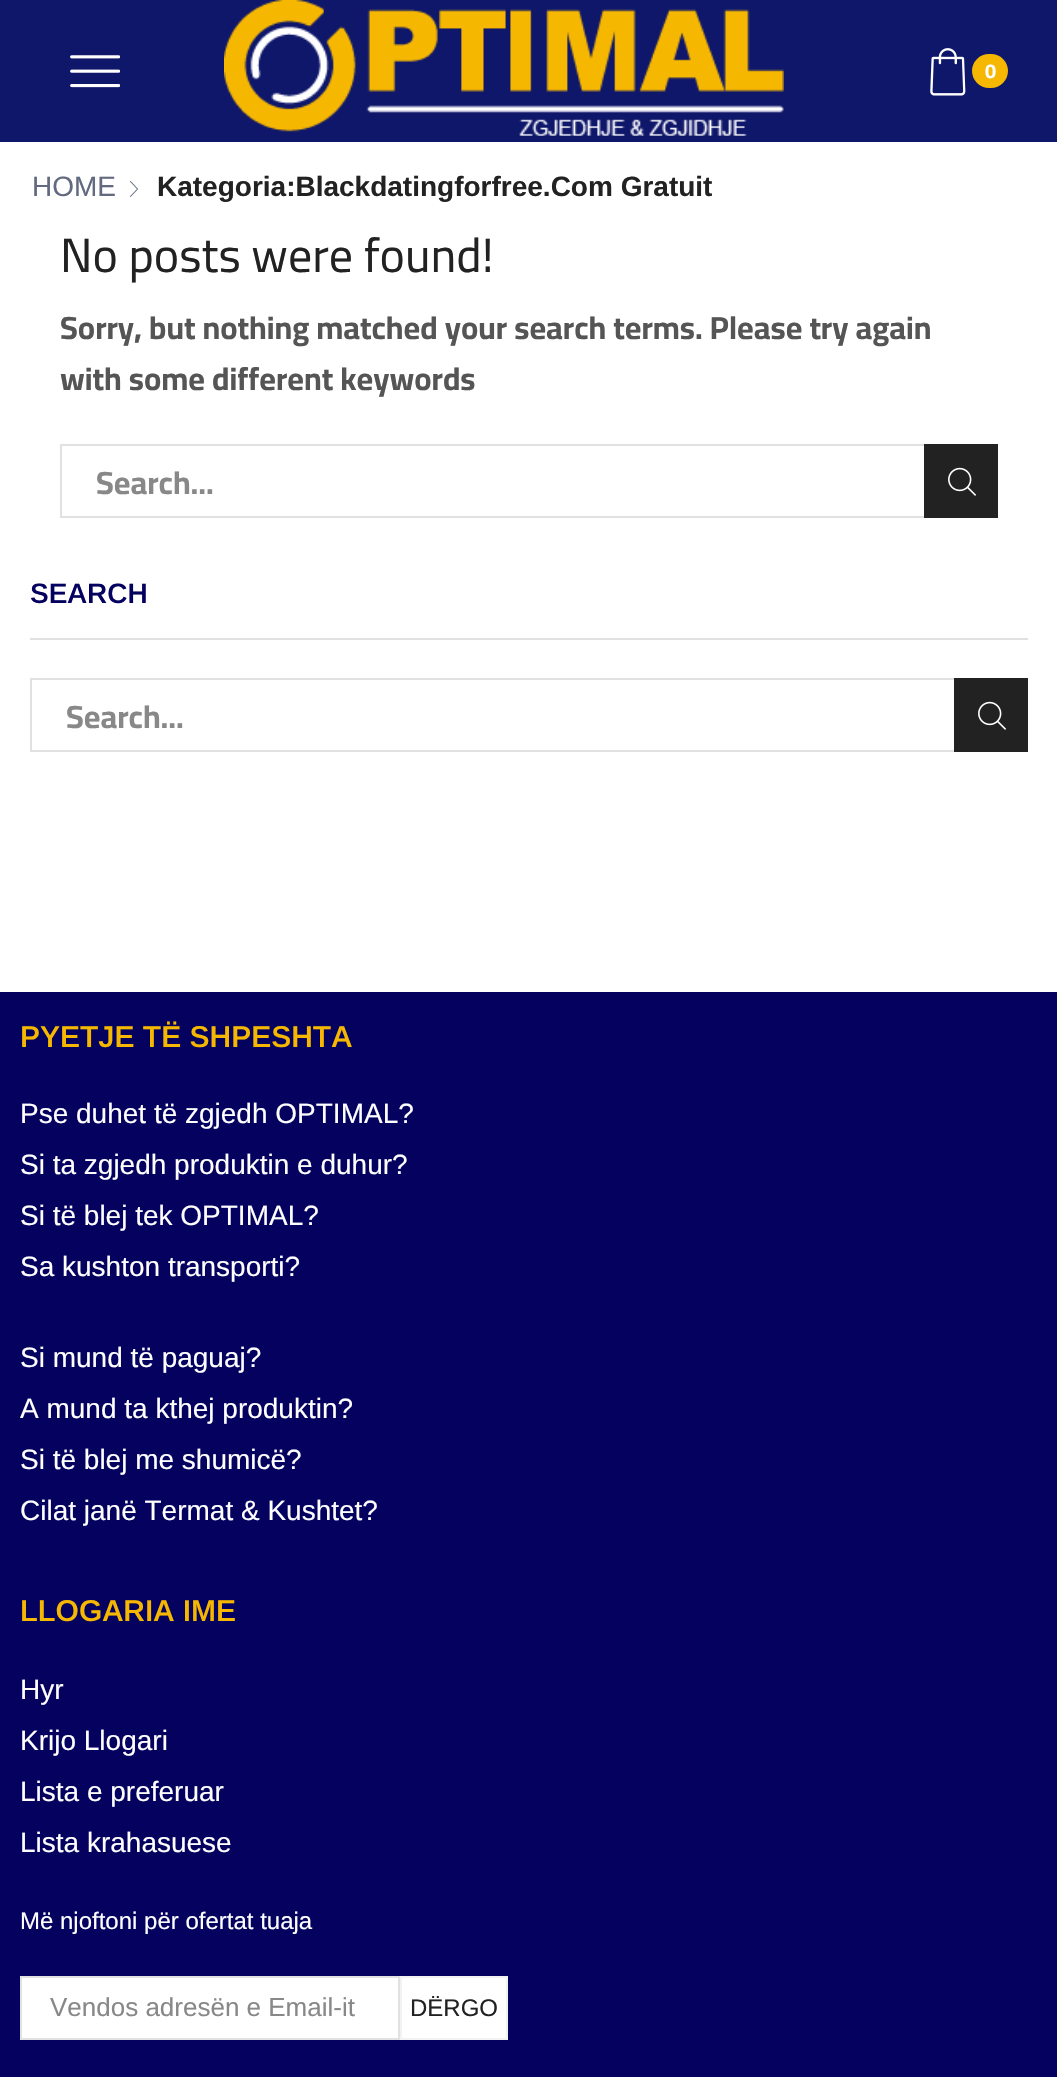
void draw(SkCanvas* canvas) {
	SkPaint fill;
	fill.setAntiAlias(true);
	auto makeFont = [&](const char* family, int weight, float size, bool italic = false) {
		SkFontStyle style(weight, SkFontStyle::kNormal_Width,
			italic ? SkFontStyle::kItalic_Slant : SkFontStyle::kUpright_Slant);
		SkFont result(fontMgr->matchFamilyStyle(family, style), size);
		result.setSubpixel(true);
		return result;
	};
	auto text = [&](const char* s, float x, float y, const SkFont& font) {
		canvas->drawString(s, x, y, font, fill);
	};
	auto box = [&](float l, float t, float r, float b) {
		canvas->drawRect(SkRect::MakeLTRB(l, t, r, b), fill);
	};
	auto roundBox = [&](float l, float t, float r, float b, float radius) {
		canvas->drawRoundRect(SkRect::MakeLTRB(l, t, r, b), radius, radius, fill);
	};
	auto picture = [&](const char* path, float l, float t, float r, float b) {
		auto image = SkImages::DeferredFromEncodedData(SkData::MakeFromFileName(path));
		canvas->drawImageRect(image, SkRect::MakeLTRB(l, t, r, b), SkSamplingOptions());
	};
	canvas->clear(0xFFFFFFFF);
	fill.setColor(0xFF0F176A);
	box(0, 0, 1057, 142);
	picture("image0.png", 70, 55, 120, 88);
	picture("image1.png", 224, 0, 784, 136);
	picture("image2.png", 930, 48, 966, 96);
	fill.setColor(0xFFF5B700);
	roundBox(972, 54, 1008, 88, 17);
	picture("image3.png", 130, 181, 138, 197);
	fill.setStyle(SkPaint::kStroke_Style);
	fill.setStrokeWidth(2);
	fill.setColor(0xFFE1E1E1);
	canvas->drawRect(SkRect::MakeLTRB(61, 445, 997, 517), fill);
	fill.setStyle(SkPaint::kFill_Style);
	fill.setColor(0xFF222222);
	box(924, 444, 998, 518);
	picture("image4.png", 948, 467, 976, 496);
	fill.setColor(0xFFE1E1E1);
	box(30, 638, 1028, 640);
	fill.setStyle(SkPaint::kStroke_Style);
	canvas->drawRect(SkRect::MakeLTRB(31, 679, 1027, 751), fill);
	fill.setStyle(SkPaint::kFill_Style);
	fill.setColor(0xFF222222);
	box(954, 678, 1028, 752);
	picture("image4.png", 978, 701, 1006, 730);
	fill.setColor(0xFF05015F);
	box(0, 992, 1057, 2077);
	fill.setColor(0xFFFFFFFF);
	canvas->drawRect(SkRect::MakeLTRB(21, 1977, 399, 2039), fill);
	fill.setStyle(SkPaint::kStroke_Style);
	fill.setColor(0xFFE1E1E1);
	canvas->drawRect(SkRect::MakeLTRB(21, 1977, 399, 2039), fill);
	fill.setStyle(SkPaint::kFill_Style);
	fill.setColor(0xFFFFFFFF);
	canvas->drawRect(SkRect::MakeLTRB(401, 1977, 507, 2039), fill);
	fill.setStyle(SkPaint::kStroke_Style);
	fill.setColor(0xFFF2F2F2);
	canvas->drawRect(SkRect::MakeLTRB(401, 1977, 507, 2039), fill);
	auto font1 = makeFont("Cairo", 700, 20);
	fill.setStyle(SkPaint::kFill_Style);
	fill.setColor(0xFFFFFFFF);
	text("0", 985, 78, font1);
	auto font2 = makeFont("Arimo", 400, 28);
	fill.setColor(0xFF626A7F);
	text("HOME", 32, 196, font2);
	auto font3 = makeFont("Arimo", 700, 28);
	fill.setColor(0xFF222222);
	text("Kategoria:Blackdatingforfree.Com Gratuit", 157, 196, font3);
	auto font4 = makeFont("Cairo", 400, 48);
	text("No posts were found!", 60, 272, font4);
	auto font5 = makeFont("Cairo", 700, 32);
	fill.setColor(0xFF555555);
	text("Sorry, but nothing matched your search terms. Please try again", 60, 339, font5);
	text("with some different keywords", 60, 390, font5);
	fill.setColor(0xFF888888);
	text("Search...", 96, 494, font5);
	auto font6 = makeFont("Arimo", 600, 28);
	fill.setColor(0xFF05015F);
	text("SEARCH", 30, 603, font6);
	fill.setColor(0xFF888888);
	text("Search...", 66, 728, font5);
	auto font7 = makeFont("Arimo", 600, 30);
	fill.setColor(0xFFF5B700);
	text("PYETJE TË SHPESHTA", 20, 1047, font7);
	fill.setColor(0xFFFFFFFF);
	text("Pse duhet të zgjedh OPTIMAL?", 20, 1123, font2);
	text("Si ta zgjedh produktin e duhur?", 20, 1174, font2);
	text("Si të blej tek OPTIMAL?", 20, 1225, font2);
	text("Sa kushton transporti?", 20, 1276, font2);
	text("Si mund të paguaj?", 20, 1367, font2);
	text("A mund ta kthej produktin?", 20, 1418, font2);
	text("Si të blej me shumicë?", 20, 1469, font2);
	text("Cilat janë Termat & Kushtet?", 20, 1520, font2);
	fill.setColor(0xFFF5B700);
	text("LLOGARIA IME", 20, 1621, font7);
	fill.setColor(0xFFFFFFFF);
	text("Hyr", 20, 1699, font2);
	text("Krijo Llogari", 20, 1750, font2);
	text("Lista e preferuar", 20, 1801, font2);
	text("Lista krahasuese", 20, 1852, font2);
	auto font8 = makeFont("Arimo", 400, 24);
	text("Më njoftoni për ofertat tuaja", 20, 1929, font8);
	auto font9 = makeFont("Arimo", 400, 26);
	fill.setColor(0xFF888888);
	text("Vendos adresën e Email-it", 50, 2016, font9);
	fill.setColor(0xFF222222);
	text("DËRGO", 410, 2016, font8);
}
